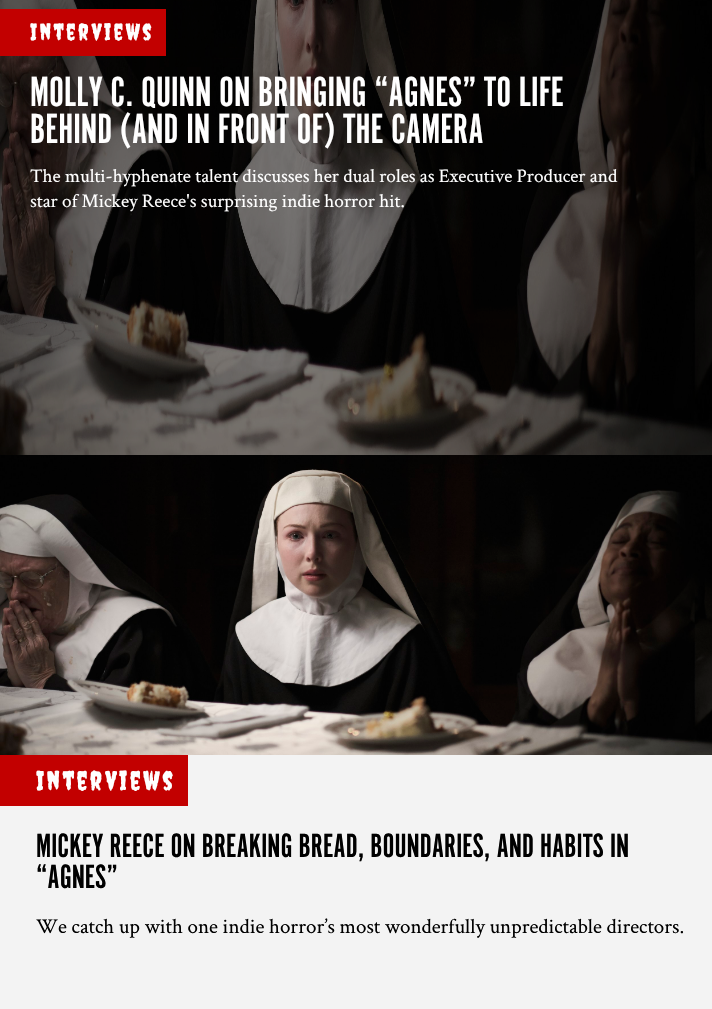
void draw(SkCanvas* canvas) {
	SkPaint fill;
	fill.setAntiAlias(true);
	auto makeFont = [&](const char* family, int weight, float size, bool italic = false) {
		SkFontStyle style(weight, SkFontStyle::kNormal_Width,
			italic ? SkFontStyle::kItalic_Slant : SkFontStyle::kUpright_Slant);
		SkFont result(fontMgr->matchFamilyStyle(family, style), size);
		result.setSubpixel(true);
		return result;
	};
	auto text = [&](const char* s, float x, float y, const SkFont& font) {
		canvas->drawString(s, x, y, font, fill);
	};
	auto spacedText = [&](const char* s, float x, float y, const SkFont& font, const SkPaint& ink, float letter, float word) {
		std::vector<SkGlyphID> glyphs(font.countText(s, strlen(s), SkTextEncoding::kUTF8));
		std::vector<float> xs(glyphs.size());
		font.textToGlyphs(s, strlen(s), SkTextEncoding::kUTF8, glyphs);
		font.getXPos(glyphs, xs, x);
		float extra = 0;
		for (size_t i = 0; i < glyphs.size(); i++) {
			xs[i] += extra;
			extra += letter + word * (glyphs[i] == font.unicharToGlyph(' '));
		}
		canvas->drawTextBlob(SkTextBlob::MakeFromPosHGlyphs(glyphs, xs, y, font), 0, 0, ink);
	};
	auto box = [&](float l, float t, float r, float b) {
		canvas->drawRect(SkRect::MakeLTRB(l, t, r, b), fill);
	};
	auto picture = [&](const char* path, float l, float t, float r, float b) {
		auto image = SkImages::DeferredFromEncodedData(SkData::MakeFromFileName(path));
		canvas->drawImageRect(image, SkRect::MakeLTRB(l, t, r, b), SkSamplingOptions());
	};
	canvas->clear(0xFFFFFFFF);
	picture("image0.png", 0, 0, 712, 455);
	fill.setColor(0xFFC20000);
	box(0, 9, 166, 56);
	picture("image1.png", 0, 455, 712, 755);
	fill.setColor(0xFFF3F3F3);
	box(0, 755, 712, 1009);
	fill.setColor(0xFFC20000);
	box(0, 755, 188, 806);
	auto font1 = makeFont("Creepster", 400, 22.75f);
	fill.setColor(0xFFFFFFFF);
	spacedText("Interviews", 30, 40, font1, fill, 2.5f, 0);
	auto font2 = makeFont("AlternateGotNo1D", 400, 43.75f);
	text("MOLLY C. QUINN ON BRINGING “AGNES” TO LIFE", 30, 106, font2);
	text("BEHIND (AND IN FRONT OF) THE CAMERA", 30, 143, font2);
	auto font3 = makeFont("Crimson Text", 400, 19.25f);
	text("The multi-hyphenate talent discusses her dual roles as Executive Producer and", 30, 182, font3);
	text("star of Mickey Reece's surprising indie horror hit.", 30, 207, font3);
	auto font4 = makeFont("Creepster", 400, 26.25f);
	spacedText("Interviews", 36, 790, font4, fill, 2.5f, 0);
	auto font5 = makeFont("AlternateGotNo1D", 400, 35);
	fill.setColor(0xFF000000);
	text("MICKEY REECE ON BREAKING BREAD, BOUNDARIES, AND HABITS IN", 36, 857, font5);
	text("“AGNES”", 36, 888, font5);
	auto font6 = makeFont("Crimson Text", 400, 21);
	text("We catch up with one indie horror’s most wonderfully unpredictable directors.", 36, 933, font6);
}
